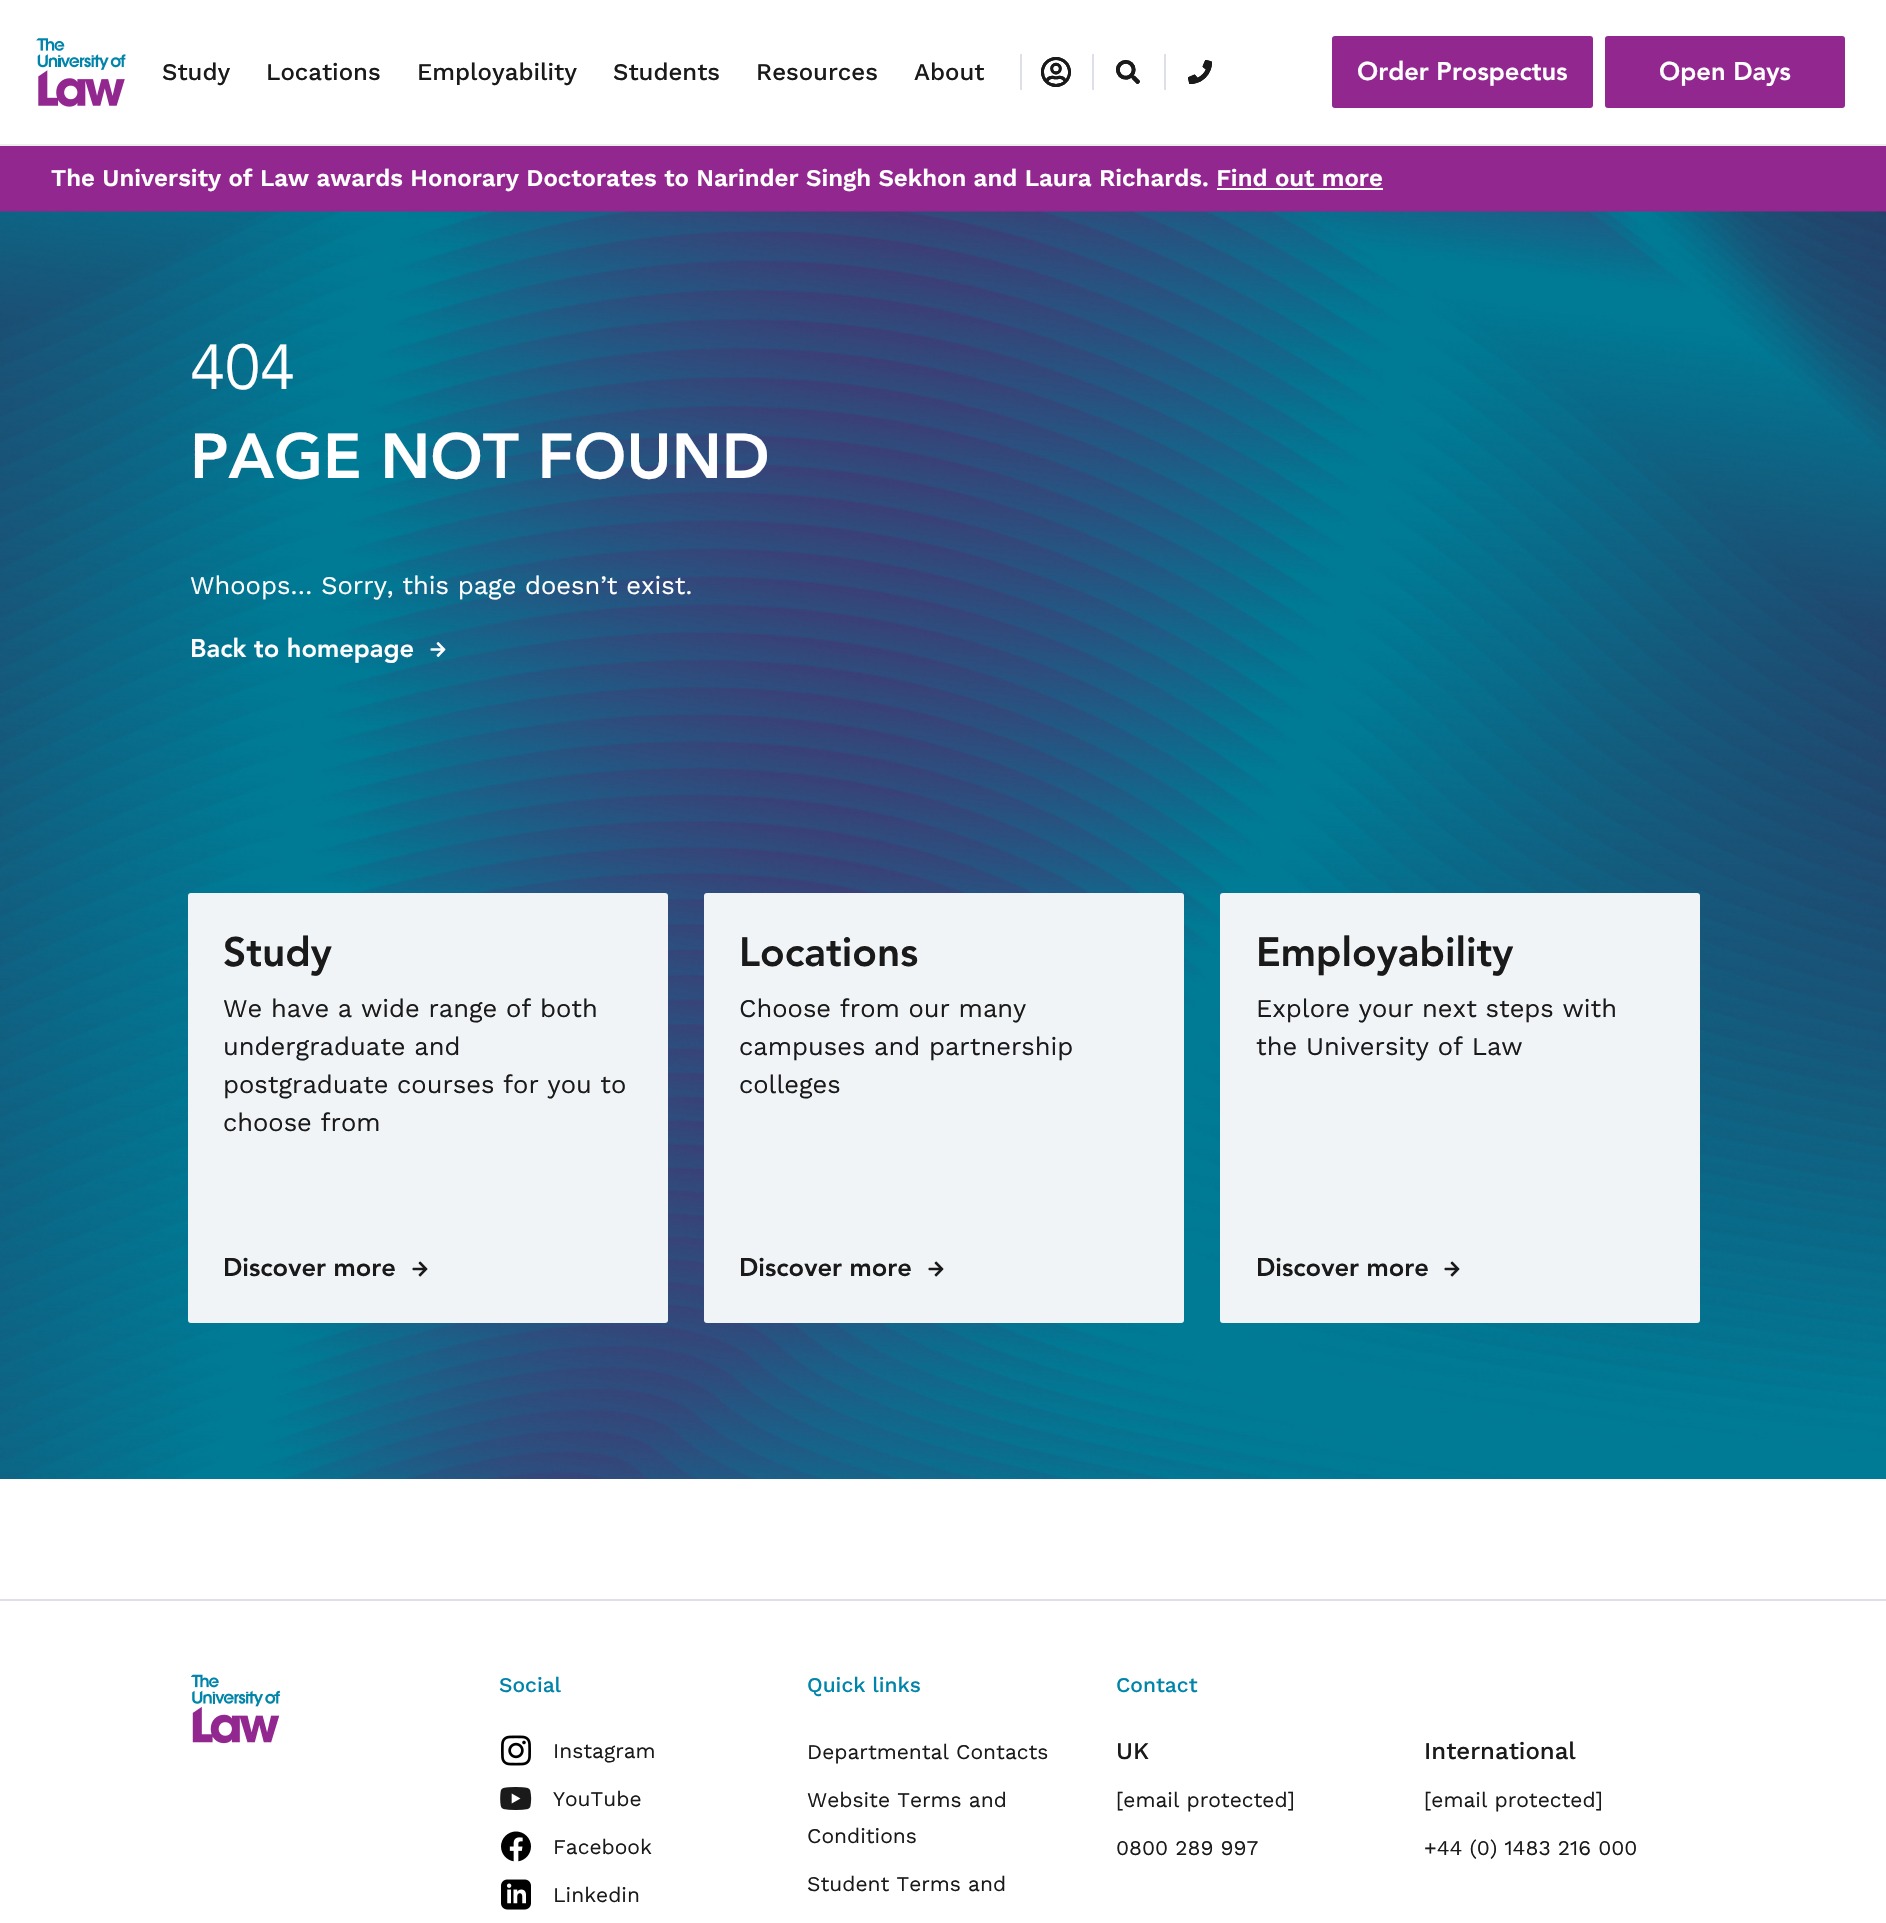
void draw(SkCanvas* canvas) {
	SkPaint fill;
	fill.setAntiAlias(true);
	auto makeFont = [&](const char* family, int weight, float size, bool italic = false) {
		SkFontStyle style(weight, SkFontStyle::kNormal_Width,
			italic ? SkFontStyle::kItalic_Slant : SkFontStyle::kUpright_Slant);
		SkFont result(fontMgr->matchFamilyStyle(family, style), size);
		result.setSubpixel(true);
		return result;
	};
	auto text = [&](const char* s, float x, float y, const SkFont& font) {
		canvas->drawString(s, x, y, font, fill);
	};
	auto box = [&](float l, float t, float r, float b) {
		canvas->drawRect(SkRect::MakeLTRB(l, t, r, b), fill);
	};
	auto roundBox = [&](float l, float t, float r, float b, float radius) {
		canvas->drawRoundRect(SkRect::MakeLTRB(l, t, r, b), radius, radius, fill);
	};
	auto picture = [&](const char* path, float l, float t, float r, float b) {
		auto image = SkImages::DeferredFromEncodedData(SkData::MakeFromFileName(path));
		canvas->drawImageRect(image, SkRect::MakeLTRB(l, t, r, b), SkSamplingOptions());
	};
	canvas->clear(0xFFFFFFFF);
	fill.setColor(0xFFEEEEEE);
	box(0, 144, 1886, 146);
	picture("image0.png", 36, 38, 126, 107);
	fill.setColor(0xFFDDE0E9);
	box(1020, 54, 1022, 90);
	picture("image1.png", 1041, 57, 1071, 87);
	box(1092, 54, 1094, 90);
	picture("image2.png", 1116, 60, 1140, 84);
	box(1164, 54, 1166, 90);
	picture("image3.png", 1188, 60, 1212, 84);
	fill.setColor(0xFF91278F);
	canvas->drawRoundRect(SkRect::MakeLTRB(1333, 37, 1592, 107), 2, 2, fill);
	fill.setStyle(SkPaint::kStroke_Style);
	fill.setStrokeWidth(2);
	canvas->drawRoundRect(SkRect::MakeLTRB(1333, 37, 1592, 107), 2, 2, fill);
	fill.setStyle(SkPaint::kFill_Style);
	canvas->drawRoundRect(SkRect::MakeLTRB(1606, 37, 1844, 107), 2, 2, fill);
	fill.setStyle(SkPaint::kStroke_Style);
	canvas->drawRoundRect(SkRect::MakeLTRB(1606, 37, 1844, 107), 2, 2, fill);
	fill.setStyle(SkPaint::kFill_Style);
	box(0, 146, 1886, 212);
	fill.setColor(0xFFFFFFFF);
	box(1217, 188, 1383, 190);
	picture("image4.png", 0, 211, 1886, 1479);
	picture("image5.png", 430, 642, 446, 657);
	fill.setColor(0xFFF0F4F7);
	roundBox(188, 893, 668, 1323, 3);
	picture("image6.png", 412, 1261, 428, 1277);
	roundBox(704, 893, 1184, 1323, 3);
	picture("image6.png", 928, 1261, 944, 1277);
	roundBox(1220, 893, 1700, 1323, 3);
	picture("image6.png", 1444, 1261, 1460, 1277);
	fill.setColor(0xFFDDE0E9);
	box(0, 1599, 1886, 1601);
	picture("image7.png", 191, 1674, 280, 1744);
	picture("image8.png", 501, 1735, 531, 1766);
	picture("image9.png", 500, 1787, 532, 1810);
	picture("image10.png", 501, 1831, 531, 1862);
	picture("image11.png", 501, 1879, 531, 1910);
	auto font1 = makeFont("Work Sans", 500, 24);
	fill.setColor(0xFF1A1A1A);
	text("Study", 162, 80, font1);
	text("Locations", 266, 80, font1);
	text("Employability", 417, 80, font1);
	text("Students", 613, 80, font1);
	text("Resources", 756, 80, font1);
	text("About", 914, 80, font1);
	auto font2 = makeFont("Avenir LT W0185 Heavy", 900, 25.5f);
	fill.setColor(0xFFFFFFFF);
	text("Order Prospectus", 1357, 80, font2);
	text("Open Days", 1659, 80, font2);
	auto font3 = makeFont("Work Sans", 600, 24);
	text("The University of Law awards Honorary Doctorates to Narinder Singh Sekhon and Laura Richards. Find out more", 51, 186, font3);
	auto font4 = makeFont("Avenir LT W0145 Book", 400, 63);
	text("404", 190, 389, font4);
	auto font5 = makeFont("Avenir LT W0185 Heavy", 900, 63);
	text("PAGE NOT FOUND", 190, 478, font5);
	auto font6 = makeFont("Work Sans", 400, 25.5f);
	text("Whoops… Sorry, this page doesn’t exist.", 190, 594, font6);
	text("Back to homepage", 190, 657, font2);
	auto font7 = makeFont("Avenir LT W0185 Heavy", 900, 40.5f);
	fill.setColor(0xFF1A1A1A);
	text("Study", 223, 966, font7);
	text("We have a wide range of both", 223, 1017, font6);
	text("undergraduate and", 223, 1055, font6);
	text("postgraduate courses for you to", 223, 1093, font6);
	text("choose from", 223, 1131, font6);
	text("Discover more", 223, 1276, font2);
	text("Locations", 739, 966, font7);
	text("Choose from our many", 739, 1017, font6);
	text("campuses and partnership", 739, 1055, font6);
	text("colleges", 739, 1093, font6);
	text("Discover more", 739, 1276, font2);
	text("Employability", 1256, 966, font7);
	text("Explore your next steps with", 1256, 1017, font6);
	text("the University of Law", 1256, 1055, font6);
	text("Discover more", 1256, 1276, font2);
	auto font8 = makeFont("Work Sans", 500, 21);
	fill.setColor(0xFF0084A9);
	text("Social", 499, 1692, font8);
	auto font9 = makeFont("Work Sans", 400, 21);
	fill.setColor(0xFF1A1A1A);
	text("Instagram", 553, 1758, font9);
	text("YouTube", 553, 1806, font9);
	text("Facebook", 553, 1854, font9);
	text("Linkedin", 553, 1902, font9);
	fill.setColor(0xFF0084A9);
	text("Quick links", 807, 1692, font8);
	fill.setColor(0xFF1A1A1A);
	text("Departmental Contacts", 807, 1759, font9);
	text("Website Terms and", 807, 1807, font9);
	text("Conditions", 807, 1843, font9);
	text("Student Terms and", 807, 1891, font9);
	fill.setColor(0xFF0084A9);
	text("Contact", 1116, 1692, font8);
	fill.setColor(0xFF1A1A1A);
	text("UK", 1116, 1759, font1);
	text("[email protected]", 1116, 1807, font9);
	text("0800 289 997", 1116, 1855, font9);
	text("International", 1424, 1759, font1);
	text("[email protected]", 1424, 1807, font9);
	text("+44 (0) 1483 216 000", 1424, 1855, font9);
}
